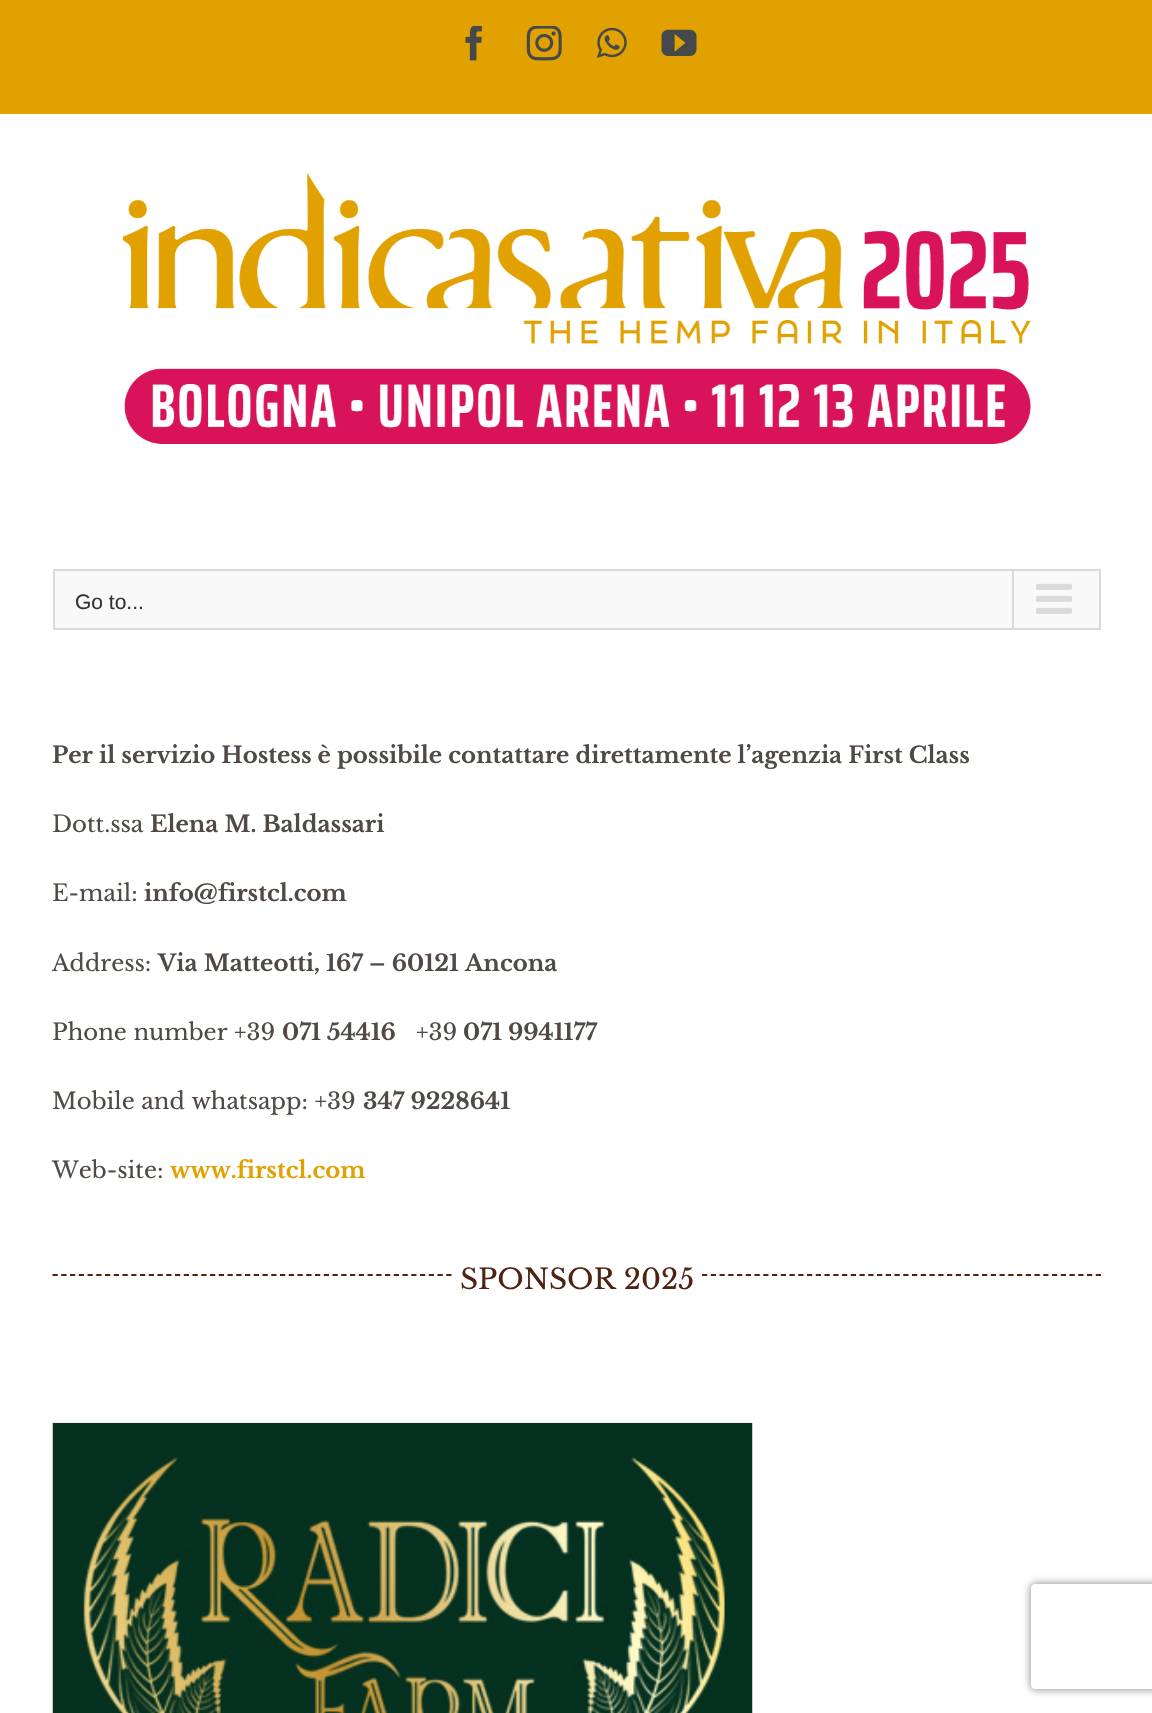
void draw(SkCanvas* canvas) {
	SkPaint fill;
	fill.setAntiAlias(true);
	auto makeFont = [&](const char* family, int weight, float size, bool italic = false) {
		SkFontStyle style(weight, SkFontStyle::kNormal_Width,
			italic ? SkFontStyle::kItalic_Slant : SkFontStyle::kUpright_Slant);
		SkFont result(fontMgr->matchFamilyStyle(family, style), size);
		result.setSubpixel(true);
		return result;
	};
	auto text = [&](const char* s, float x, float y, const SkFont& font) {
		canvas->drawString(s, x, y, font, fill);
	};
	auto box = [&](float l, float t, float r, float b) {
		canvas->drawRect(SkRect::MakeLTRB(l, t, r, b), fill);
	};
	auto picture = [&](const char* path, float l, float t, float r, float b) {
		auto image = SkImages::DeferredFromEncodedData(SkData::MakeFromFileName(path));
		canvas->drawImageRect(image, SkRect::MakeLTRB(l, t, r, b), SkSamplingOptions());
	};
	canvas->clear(0xFFFFFFFF);
	fill.setColor(0xFFE0A101);
	box(0, 0, 1152, 114);
	picture("image0.png", 465, 26, 482, 61);
	picture("image1.png", 526, 26, 562, 61);
	picture("image2.png", 596, 27, 627, 58);
	picture("image3.png", 661, 29, 697, 56);
	picture("image4.png", 122, 173, 1031, 444);
	fill.setColor(0xFFF9F9F9);
	canvas->drawRect(SkRect::MakeLTRB(54, 570, 1100, 629), fill);
	fill.setStyle(SkPaint::kStroke_Style);
	fill.setStrokeWidth(2);
	fill.setColor(0xFFDADADA);
	canvas->drawRect(SkRect::MakeLTRB(54, 570, 1100, 629), fill);
	fill.setStyle(SkPaint::kFill_Style);
	box(1012, 571, 1014, 628);
	picture("image5.png", 1036, 583, 1072, 614);
	fill.setStyle(SkPaint::kStroke_Style);
	fill.setStrokeWidth(1.8f);
	fill.setColor(0xFF4F2313);
	fill.setPathEffect(SkDashPathEffect::Make({{5.25f, 3.5f}}, 0));
	canvas->drawPath(SkPathBuilder().moveTo(52.5f, 1275).lineTo(451.5f, 1275).detach(), fill);
	fill.setPathEffect(nullptr);
	fill.setPathEffect(SkDashPathEffect::Make({{5.25f, 3.5f}}, 0));
	canvas->drawPath(SkPathBuilder().moveTo(702, 1275).lineTo(1101, 1275).detach(), fill);
	fill.setPathEffect(nullptr);
	picture("image6.png", 52, 1422, 753, 1713);
	canvas->save();
	canvas->clipPath(SkPathBuilder(SkPathFillType::kEvenOdd).moveTo(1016, 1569).lineTo(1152, 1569).lineTo(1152, 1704).lineTo(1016, 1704).close().moveTo(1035, 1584).lineTo(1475, 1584).cubicTo(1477, 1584, 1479, 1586, 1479, 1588).lineTo(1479, 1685).cubicTo(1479, 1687, 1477, 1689, 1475, 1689).lineTo(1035, 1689).cubicTo(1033, 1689, 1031, 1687, 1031, 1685).lineTo(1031, 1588).cubicTo(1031, 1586, 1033, 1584, 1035, 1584).close().detach(), true);
	fill.setStyle(SkPaint::kFill_Style);
	fill.setColor(0xFF808080);
	fill.setMaskFilter(SkMaskFilter::MakeBlur(kNormal_SkBlurStyle, 4.5f));
	canvas->drawRoundRect(SkRect::MakeLTRB(1031, 1584, 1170, 1689), 4, 4, fill);
	fill.setMaskFilter(nullptr);
	canvas->restore();
	auto font1 = makeFont("Liberation Sans", 400, 21);
	fill.setColor(0xFF333333);
	text("Go to...", 75, 609, font1);
	auto font2 = makeFont("Libre Baskerville", 700, 22.75f);
	fill.setColor(0xFF504945);
	text("Per il servizio Hostess è possibile contattare direttamente l’agenzia First Class", 52, 763, font2);
	auto font3 = makeFont("Libre Baskerville", 400, 22.75f);
	text("Dott.ssa", 52, 832, font3);
	text("Elena M. Baldassari", 150, 832, font2);
	text("E-mail:", 52, 901, font3);
	text("info@firstcl.com", 144, 901, font2);
	text("Address:", 52, 971, font3);
	text("Via Matteotti, 167 – 60121 Ancona", 158, 971, font2);
	text("Phone number +39", 52, 1040, font3);
	text("071 54416", 282, 1040, font2);
	text("+39", 416, 1040, font3);
	text("071 9941177", 463, 1040, font2);
	text("Mobile and whatsapp: +39", 52, 1109, font3);
	text("347 9228641", 363, 1109, font2);
	text("Web-site:", 52, 1178, font3);
	fill.setColor(0xFFE0A101);
	text("www.firstcl.com", 170, 1178, font2);
	auto font4 = makeFont("Libre Baskerville", 400, 28);
	fill.setColor(0xFF4F2313);
	text("SPONSOR 2025", 460, 1289, font4);
}
